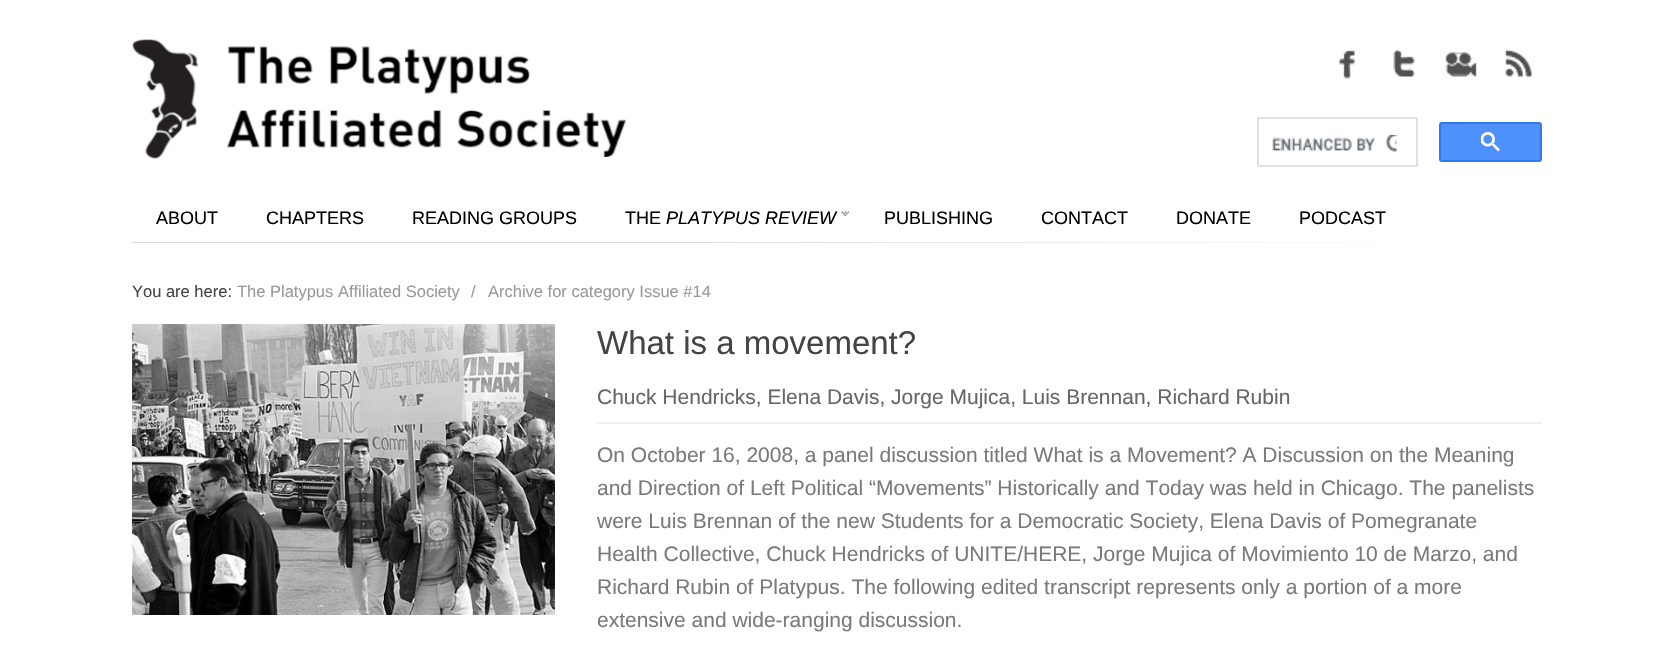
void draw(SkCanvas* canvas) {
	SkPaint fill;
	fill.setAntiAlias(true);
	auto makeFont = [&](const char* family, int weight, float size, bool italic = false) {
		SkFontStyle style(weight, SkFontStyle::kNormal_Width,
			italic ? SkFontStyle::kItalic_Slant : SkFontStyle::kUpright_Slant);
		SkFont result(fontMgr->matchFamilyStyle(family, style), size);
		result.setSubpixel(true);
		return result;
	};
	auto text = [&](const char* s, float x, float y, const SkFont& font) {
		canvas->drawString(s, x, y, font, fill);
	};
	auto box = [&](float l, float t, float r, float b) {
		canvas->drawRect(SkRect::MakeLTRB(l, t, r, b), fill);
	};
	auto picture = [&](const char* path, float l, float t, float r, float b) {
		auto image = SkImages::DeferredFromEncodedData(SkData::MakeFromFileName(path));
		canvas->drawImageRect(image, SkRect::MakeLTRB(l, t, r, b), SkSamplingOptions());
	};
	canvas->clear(0xFFFFFFFF);
	picture("image0.png", 132, 39, 626, 159);
	picture("image1.png", 1339, 50, 1355, 84);
	picture("image2.png", 1393, 48, 1415, 82);
	picture("image3.png", 1445, 52, 1477, 77);
	picture("image4.png", 1504, 49, 1532, 77);
	fill.setStyle(SkPaint::kStroke_Style);
	fill.setStrokeWidth(2);
	fill.setColor(0xFFDFE1E5);
	canvas->drawRect(SkRect::MakeLTRB(1258, 118, 1417, 166), fill);
	picture("image5.png", 1272, 135, 1397, 153);
	fill.setStyle(SkPaint::kFill_Style);
	fill.setColor(0xFF4D90FE);
	canvas->drawRoundRect(SkRect::MakeLTRB(1440, 123, 1541, 161), 2, 2, fill);
	fill.setStyle(SkPaint::kStroke_Style);
	fill.setColor(0xFF3079ED);
	canvas->drawRoundRect(SkRect::MakeLTRB(1440, 123, 1541, 161), 2, 2, fill);
	picture("image6.png", 1481, 132, 1500, 152);
	picture("image7.png", 132, 242, 1372, 243);
	picture("image8.png", 841, 211, 850, 216);
	picture("image9.png", 132, 324, 555, 615);
	fill.setStyle(SkPaint::kFill_Style);
	fill.setColor(0xFFEEEEEE);
	box(597, 422, 1542, 424);
	auto font1 = makeFont("Liberation Sans", 400, 18);
	fill.setColor(0xFF000000);
	text("ABOUT", 156, 224, font1);
	text("CHAPTERS", 266, 224, font1);
	text("READING GROUPS", 412, 224, font1);
	text("THE", 625, 224, font1);
	auto font2 = makeFont("Liberation Sans", 400, 18, true);
	text("PLATYPUS REVIEW", 666, 224, font2);
	text("PUBLISHING", 884, 224, font1);
	text("CONTACT", 1041, 224, font1);
	text("DONATE", 1176, 224, font1);
	text("PODCAST", 1299, 224, font1);
	auto font3 = makeFont("Liberation Sans", 400, 16.5f);
	fill.setColor(0xFF444444);
	text("You are here:", 132, 297, font3);
	fill.setColor(0xFF999999);
	text("The Platypus Affiliated Society", 237, 297, font3);
	text("/", 471, 297, font3);
	text("Archive for category Issue #14", 488, 297, font3);
	auto font4 = makeFont("Liberation Sans", 400, 33);
	fill.setColor(0xFF444444);
	text("What is a movement?", 597, 354, font4);
	auto font5 = makeFont("Liberation Sans", 400, 21);
	fill.setColor(0xFF666666);
	text("Chuck Hendricks, Elena Davis, Jorge Mujica, Luis Brennan, Richard Rubin", 597, 404, font5);
	fill.setColor(0xFF7A7A7A);
	text("On October 16, 2008, a panel discussion titled What is a Movement? A Discussion on the Meaning", 597, 462, font5);
	text("and Direction of Left Political “Movements” Historically and Today was held in Chicago. The panelists", 597, 495, font5);
	text("were Luis Brennan of the new Students for a Democratic Society, Elena Davis of Pomegranate", 597, 528, font5);
	text("Health Collective, Chuck Hendricks of UNITE/HERE, Jorge Mujica of Movimiento 10 de Marzo, and", 597, 561, font5);
	text("Richard Rubin of Platypus. The following edited transcript represents only a portion of a more", 597, 594, font5);
	text("extensive and wide-ranging discussion.", 597, 627, font5);
}
